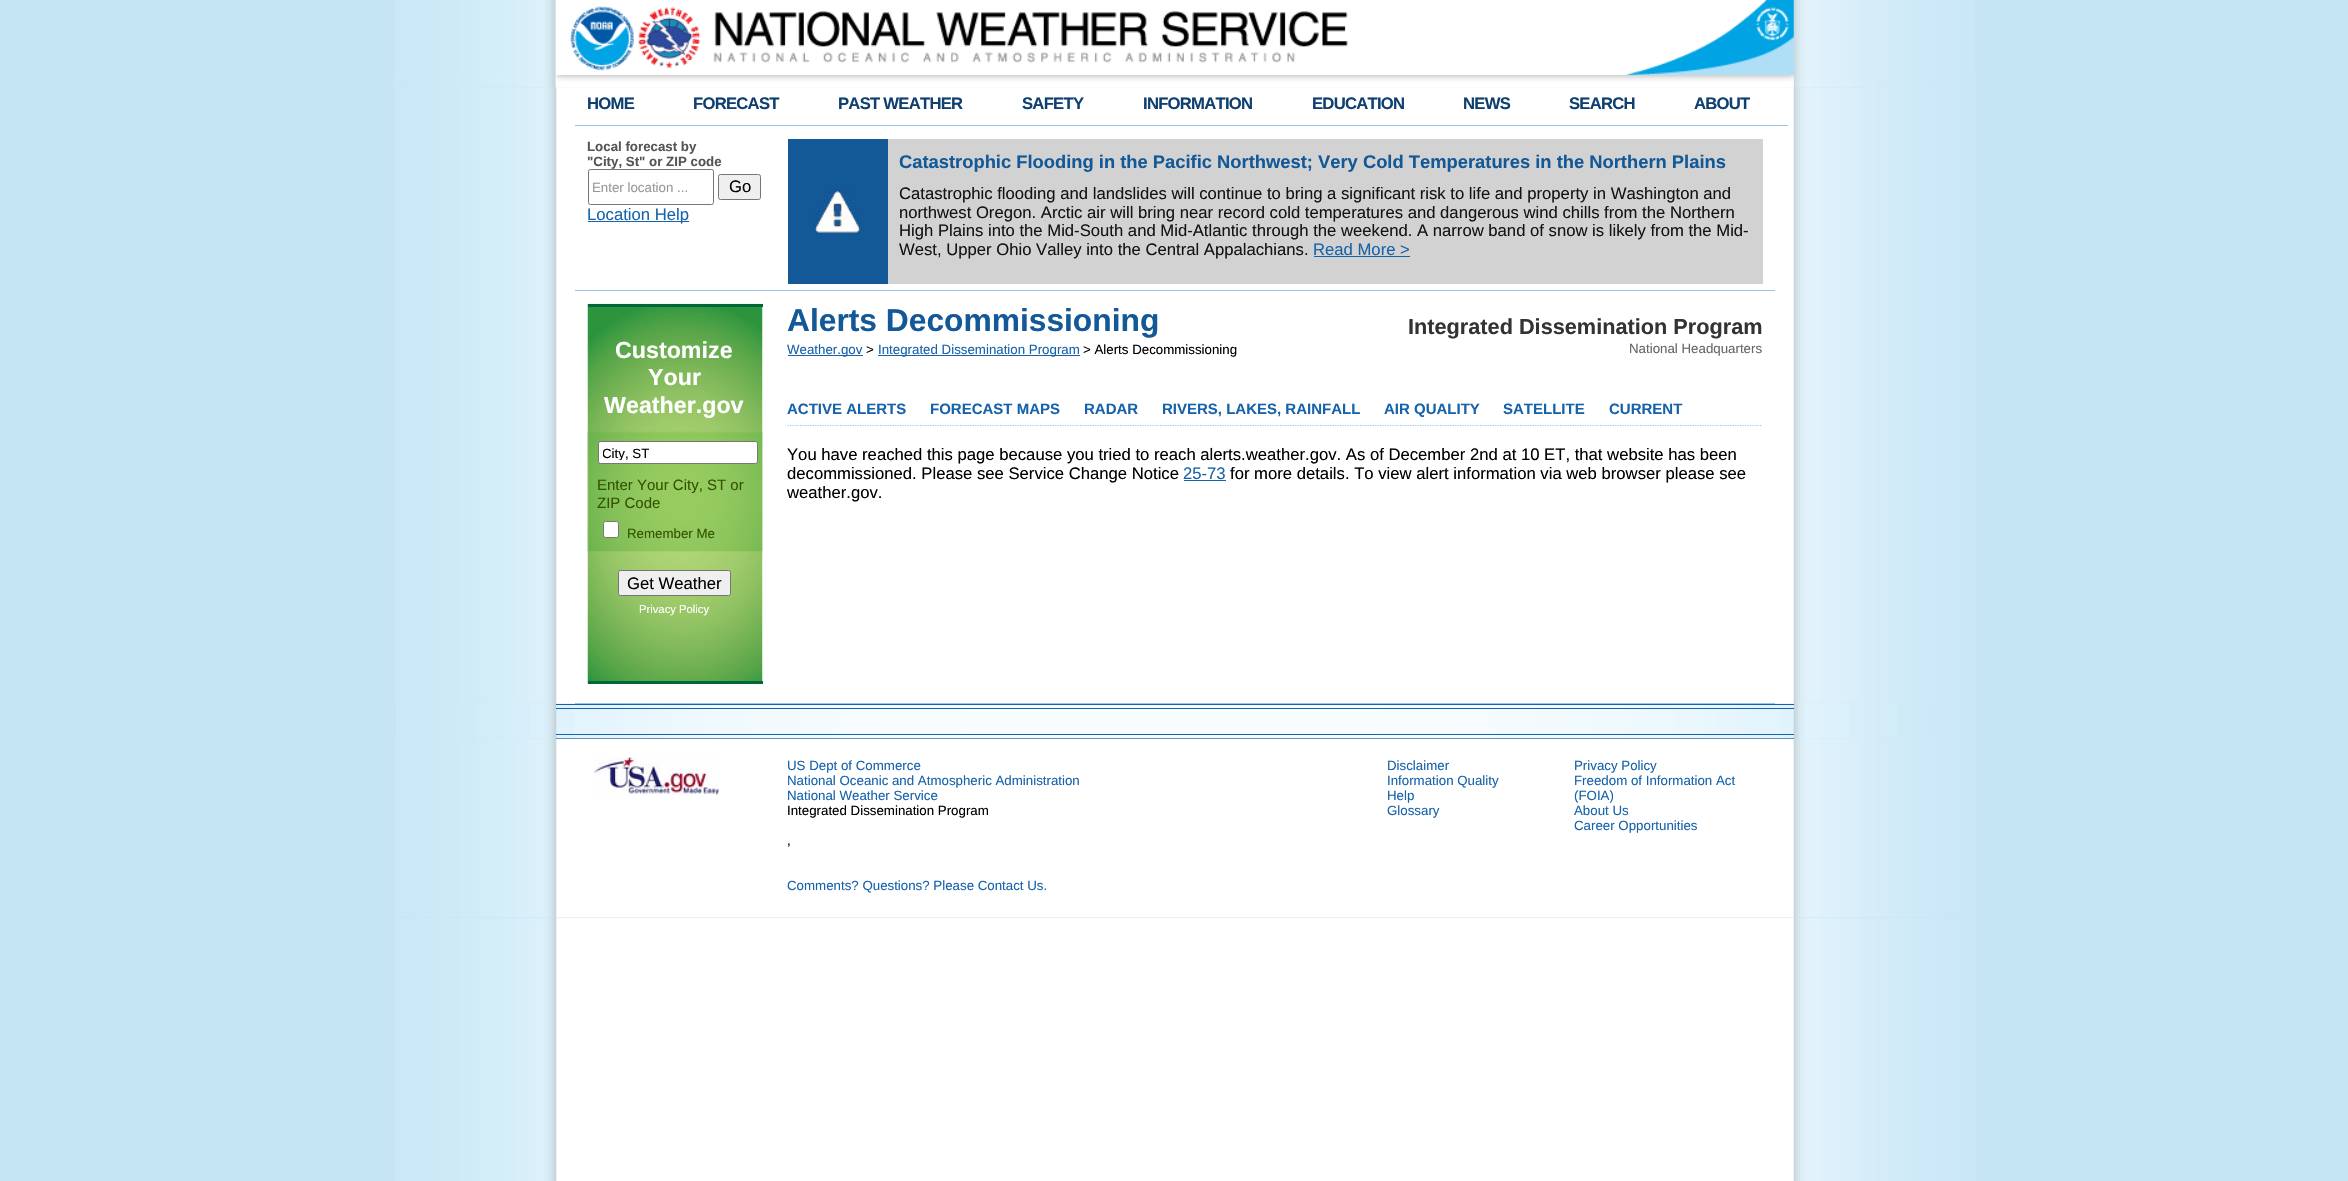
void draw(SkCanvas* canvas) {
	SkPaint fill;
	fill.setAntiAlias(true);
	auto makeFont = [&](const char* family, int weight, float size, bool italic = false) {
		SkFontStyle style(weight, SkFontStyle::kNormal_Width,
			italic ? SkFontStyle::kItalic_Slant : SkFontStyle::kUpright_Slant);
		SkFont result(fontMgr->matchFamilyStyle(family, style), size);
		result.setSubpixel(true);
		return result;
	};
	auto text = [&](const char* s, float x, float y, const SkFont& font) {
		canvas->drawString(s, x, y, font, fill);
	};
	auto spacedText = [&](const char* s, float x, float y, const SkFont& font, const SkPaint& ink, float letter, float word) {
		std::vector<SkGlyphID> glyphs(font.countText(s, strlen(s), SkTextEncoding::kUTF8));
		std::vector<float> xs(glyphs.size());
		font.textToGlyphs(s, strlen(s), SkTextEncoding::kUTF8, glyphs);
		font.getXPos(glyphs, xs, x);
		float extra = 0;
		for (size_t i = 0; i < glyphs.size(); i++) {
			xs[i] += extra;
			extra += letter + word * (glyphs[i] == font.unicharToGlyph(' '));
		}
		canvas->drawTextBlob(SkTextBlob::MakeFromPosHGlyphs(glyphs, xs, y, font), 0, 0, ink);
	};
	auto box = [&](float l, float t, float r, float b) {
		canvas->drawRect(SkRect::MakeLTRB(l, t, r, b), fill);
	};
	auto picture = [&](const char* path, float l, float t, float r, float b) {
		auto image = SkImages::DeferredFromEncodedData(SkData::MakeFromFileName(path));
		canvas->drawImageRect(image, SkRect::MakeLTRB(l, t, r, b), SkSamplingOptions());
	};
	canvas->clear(0xFFC5E5F5);
	picture("image0.png", 395, 930, 1976, 1181);
	picture("image1.png", 395, 0, 1975, 75);
	picture("image2.png", 570, 6, 1348, 71);
	picture("image3.png", 1625, 0, 1794, 75);
	picture("image4.png", 394, 75, 1976, 88);
	picture("image5.png", 556, 75, 1794, 88);
	picture("image6.png", 395, 87, 1976, 704);
	fill.setColor(0xFF94C6EF);
	box(575, 125, 1788, 126);
	fill.setStyle(SkPaint::kStroke_Style);
	fill.setStrokeWidth(1);
	fill.setColor(0xFF767676);
	canvas->drawRoundRect(SkRect::MakeLTRB(588.5f, 169.5f, 713.5f, 204.5f), 2, 2, fill);
	fill.setStyle(SkPaint::kFill_Style);
	fill.setColor(0xFFEFEFEF);
	canvas->drawRoundRect(SkRect::MakeLTRB(718.5f, 174.5f, 760.5f, 199.5f), 2, 2, fill);
	fill.setStyle(SkPaint::kStroke_Style);
	fill.setColor(0xFF767676);
	canvas->drawRoundRect(SkRect::MakeLTRB(718.5f, 174.5f, 760.5f, 199.5f), 2, 2, fill);
	fill.setStyle(SkPaint::kFill_Style);
	fill.setColor(0xFF1763AB);
	box(588, 221, 689, 222);
	fill.setColor(0xFFD2D2D2);
	box(888, 139, 1763, 284);
	fill.setColor(0xFF135997);
	box(788, 139, 888, 284);
	picture("image7.png", 812, 189, 862, 235);
	fill.setColor(0xFF1763AB);
	box(1314, 256, 1410, 257);
	fill.setColor(0xFF94C6EF);
	box(575, 290, 1775, 291);
	picture("image8.png", 587, 303, 763, 684);
	fill.setColor(0xFF006838);
	box(588, 304, 763, 307);
	box(588, 681, 763, 684);
	picture("image9.png", 587, 431, 763, 552);
	fill.setColor(0xFFFFFFFF);
	canvas->drawRoundRect(SkRect::MakeLTRB(598.5f, 441.5f, 757.5f, 463.5f), 2, 2, fill);
	fill.setStyle(SkPaint::kStroke_Style);
	fill.setColor(0xFF767676);
	canvas->drawRoundRect(SkRect::MakeLTRB(598.5f, 441.5f, 757.5f, 463.5f), 2, 2, fill);
	fill.setStyle(SkPaint::kFill_Style);
	fill.setColor(0xFFFFFFFF);
	canvas->drawRoundRect(SkRect::MakeLTRB(603.5f, 521.5f, 618.5f, 537.5f), 2, 2, fill);
	fill.setStyle(SkPaint::kStroke_Style);
	fill.setColor(0xFF767676);
	canvas->drawRoundRect(SkRect::MakeLTRB(603.5f, 521.5f, 618.5f, 537.5f), 2, 2, fill);
	fill.setStyle(SkPaint::kFill_Style);
	fill.setColor(0xFFEFEFEF);
	canvas->drawRoundRect(SkRect::MakeLTRB(618.5f, 570.5f, 730.5f, 595.5f), 2, 2, fill);
	fill.setStyle(SkPaint::kStroke_Style);
	fill.setColor(0xFF767676);
	canvas->drawRoundRect(SkRect::MakeLTRB(618.5f, 570.5f, 730.5f, 595.5f), 2, 2, fill);
	fill.setStyle(SkPaint::kFill_Style);
	fill.setColor(0xFF1763AB);
	box(788, 355, 863, 356);
	box(878, 355, 1080, 356);
	fill.setStyle(SkPaint::kStroke_Style);
	fill.setStrokeWidth(1.2f);
	fill.setColor(0xFF94C6EF);
	fill.setPathEffect(SkDashPathEffect::Make({{1.25f, 1.25f}}, 0));
	canvas->drawPath(SkPathBuilder().moveTo(787.5f, 425.5f).lineTo(1762.5f, 425.5f).detach(), fill);
	fill.setPathEffect(nullptr);
	fill.setStyle(SkPaint::kFill_Style);
	fill.setColor(0xFF1763AB);
	box(1184, 480, 1226, 481);
	picture("image10.png", 396, 703, 1976, 739);
	fill.setColor(0xFF94C6EF);
	box(575, 703, 1775, 704);
	fill.setColor(0xFF1763AB);
	box(556, 704, 1794, 705);
	box(556, 708, 1794, 709);
	box(556, 734, 1794, 735);
	box(556, 738, 1794, 739);
	picture("image11.png", 395, 738, 1976, 930);
	fill.setColor(0xFFC5E5F5);
	box(395, 739, 1976, 918);
	picture("image12.png", 395, 738, 1976, 918);
	picture("image13.png", 593, 757, 719, 795);
	auto font1 = makeFont("Liberation Sans", 700, 16.67f);
	fill.setColor(0xFF104070);
	spacedText("HOME", 587, 109, font1, fill, -0.75f, 0);
	spacedText("FORECAST", 693, 109, font1, fill, -0.75f, 0);
	spacedText("PAST WEATHER", 838, 109, font1, fill, -0.75f, 0);
	spacedText("SAFETY", 1022, 109, font1, fill, -0.75f, 0);
	spacedText("INFORMATION", 1143, 109, font1, fill, -0.75f, 0);
	spacedText("EDUCATION", 1312, 109, font1, fill, -0.75f, 0);
	spacedText("NEWS", 1463, 109, font1, fill, -0.75f, 0);
	spacedText("SEARCH", 1569, 109, font1, fill, -0.75f, 0);
	spacedText("ABOUT", 1694, 109, font1, fill, -0.75f, 0);
	auto font2 = makeFont("Liberation Sans", 700, 13.3f);
	fill.setColor(0xFF555555);
	text("Local forecast by", 587, 151, font2);
	text("\"City, St\" or ZIP code", 587, 166, font2);
	auto font3 = makeFont("Liberation Sans", 400, 13.3f);
	fill.setColor(0xFF999999);
	text("Enter location ...", 592, 192, font3);
	auto font4 = makeFont("Liberation Sans", 400, 16.67f);
	fill.setColor(0xFF000000);
	text("Go", 729, 192, font4);
	fill.setColor(0xFF1763AB);
	text("Location Help", 587, 220, font4);
	auto font5 = makeFont("Liberation Sans", 700, 18.35f);
	fill.setColor(0xFF135897);
	text("Catastrophic Flooding in the Pacific Northwest; Very Cold Temperatures in the Northern Plains", 899, 168, font5);
	fill.setColor(0xFF141414);
	text("Catastrophic flooding and landslides will continue to bring a significant risk to life and property in Washington and", 899, 199, font4);
	text("northwest Oregon. Arctic air will bring near record cold temperatures and dangerous wind chills from the Northern", 899, 218, font4);
	text("High Plains into the Mid-South and Mid-Atlantic through the weekend. A narrow band of snow is likely from the Mid-", 899, 236, font4);
	text("West, Upper Ohio Valley into the Central Appalachians.", 899, 255, font4);
	fill.setColor(0xFF1763AB);
	text("Read More >", 1313, 255, font4);
	auto font6 = makeFont("Liberation Sans", 700, 23.25f);
	fill.setColor(0xFFFFFFFF);
	text("Customize", 615, 358, font6);
	text("Your", 648, 385, font6);
	text("Weather.gov", 604, 413, font6);
	canvas->save();
	canvas->clipRect(SkRect::MakeLTRB(603, 445, 753, 460));
	fill.setColor(0xFF000000);
	text("City, ST", 602, 458, font3);
	canvas->restore();
	auto font7 = makeFont("Liberation Sans", 400, 15);
	fill.setColor(0xFF335500);
	text("Enter Your City, ST or", 597, 490, font7);
	text("ZIP Code", 597, 508, font7);
	text("Remember Me", 627, 538, font3);
	fill.setColor(0xFF000000);
	text("Get Weather", 627, 589, font4);
	auto font8 = makeFont("Liberation Sans", 400, 11.25f);
	fill.setColor(0xFFFFFFFF);
	text("Privacy Policy", 639, 613, font8);
	auto font9 = makeFont("Liberation Sans", 700, 31.75f);
	fill.setColor(0xFF135897);
	text("Alerts Decommissioning", 787, 331, font9);
	fill.setColor(0xFF1763AB);
	text("Weather.gov", 787, 354, font3);
	fill.setColor(0xFF000000);
	text(">", 866, 354, font3);
	fill.setColor(0xFF1763AB);
	text("Integrated Dissemination Program", 878, 354, font3);
	fill.setColor(0xFF000000);
	text("> Alerts Decommissioning", 1083, 354, font3);
	auto font10 = makeFont("Liberation Sans", 700, 21.7f);
	fill.setColor(0xFF333333);
	text("Integrated Dissemination Program", 1408, 334, font10);
	fill.setColor(0xFF666666);
	text("National Headquarters", 1629, 353, font3);
	auto font11 = makeFont("Liberation Sans", 700, 15);
	fill.setColor(0xFF1763AB);
	text("ACTIVE ALERTS", 787, 414, font11);
	text("FORECAST MAPS", 930, 414, font11);
	text("RADAR", 1084, 414, font11);
	text("RIVERS, LAKES, RAINFALL", 1162, 414, font11);
	text("AIR QUALITY", 1384, 414, font11);
	text("SATELLITE", 1503, 414, font11);
	text("CURRENT", 1609, 414, font11);
	fill.setColor(0xFF000000);
	text("You have reached this page because you tried to reach alerts.weather.gov. As of December 2nd at 10 ET, that website has been", 787, 460, font4);
	text("decommissioned. Please see Service Change Notice", 787, 479, font4);
	fill.setColor(0xFF1763AB);
	text("25-73", 1183, 479, font4);
	fill.setColor(0xFF000000);
	text("for more details. To view alert information via web browser please see", 1230, 479, font4);
	text("weather.gov.", 787, 498, font4);
	fill.setColor(0xFF1763AB);
	text("US Dept of Commerce", 787, 770, font3);
	text("National Oceanic and Atmospheric Administration", 787, 785, font3);
	text("National Weather Service", 787, 800, font3);
	fill.setColor(0xFF000000);
	text("Integrated Dissemination Program", 787, 815, font3);
	text(",", 787, 845, font3);
	fill.setColor(0xFF1763AB);
	text("Comments? Questions? Please Contact Us.", 787, 890, font3);
	text("Disclaimer", 1387, 770, font3);
	text("Information Quality", 1387, 785, font3);
	text("Help", 1387, 800, font3);
	text("Glossary", 1387, 815, font3);
	text("Privacy Policy", 1574, 770, font3);
	text("Freedom of Information Act", 1574, 785, font3);
	text("(FOIA)", 1574, 800, font3);
	text("About Us", 1574, 815, font3);
	text("Career Opportunities", 1574, 830, font3);
}
